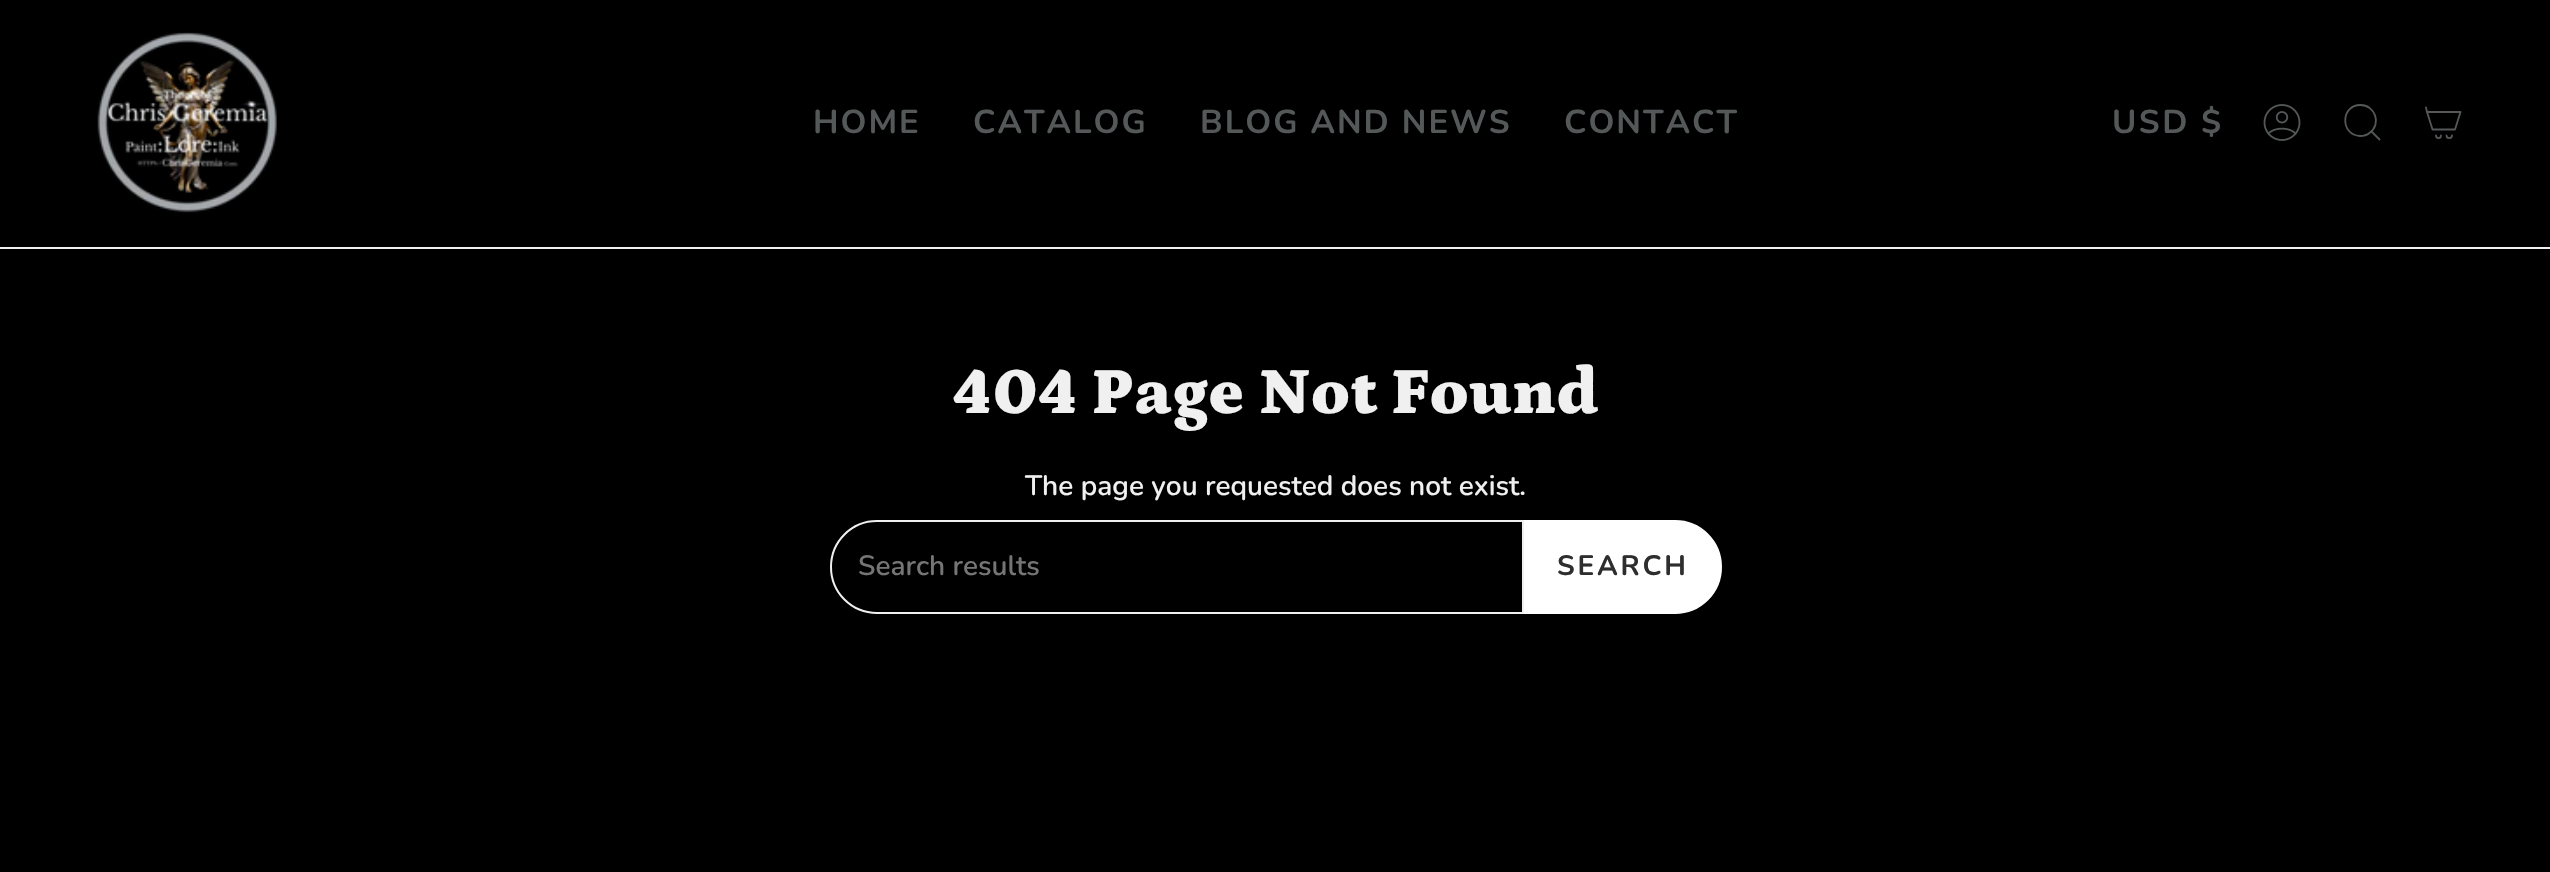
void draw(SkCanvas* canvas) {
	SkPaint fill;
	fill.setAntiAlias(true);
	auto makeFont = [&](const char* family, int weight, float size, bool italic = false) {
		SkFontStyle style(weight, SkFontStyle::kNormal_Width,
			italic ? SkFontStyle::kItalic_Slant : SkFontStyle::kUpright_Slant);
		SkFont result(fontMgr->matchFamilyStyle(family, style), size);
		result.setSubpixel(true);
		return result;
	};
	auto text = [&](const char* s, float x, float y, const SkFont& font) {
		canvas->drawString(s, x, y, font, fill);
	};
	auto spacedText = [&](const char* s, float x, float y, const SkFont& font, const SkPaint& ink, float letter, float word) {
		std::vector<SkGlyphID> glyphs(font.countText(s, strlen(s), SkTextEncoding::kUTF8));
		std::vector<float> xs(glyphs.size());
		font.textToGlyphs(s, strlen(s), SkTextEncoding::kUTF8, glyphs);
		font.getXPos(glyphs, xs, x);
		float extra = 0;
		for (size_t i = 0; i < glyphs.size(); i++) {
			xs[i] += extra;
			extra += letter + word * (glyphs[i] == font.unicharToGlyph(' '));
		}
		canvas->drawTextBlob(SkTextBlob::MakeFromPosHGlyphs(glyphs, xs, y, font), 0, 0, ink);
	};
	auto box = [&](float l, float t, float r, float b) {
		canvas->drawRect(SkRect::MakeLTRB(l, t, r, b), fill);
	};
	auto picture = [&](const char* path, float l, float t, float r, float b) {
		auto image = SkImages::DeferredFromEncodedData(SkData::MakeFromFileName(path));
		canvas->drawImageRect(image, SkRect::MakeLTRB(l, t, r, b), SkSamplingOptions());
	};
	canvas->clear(0xFF000000);
	fill.setColor(0xFFF0F0F0);
	box(0, 247, 2550, 249);
	picture("image0.png", 97, 32, 277, 213);
	picture("image1.png", 2263, 104, 2301, 141);
	fill.setStyle(SkPaint::kStroke_Style);
	fill.setStrokeWidth(1.8f);
	fill.setColor(0xFF555859);
	canvas->drawPath(SkPathBuilder().moveTo(2360.5f, 105).cubicTo(2375, 105, 2382, 124, 2369.5f, 133).cubicTo(2367, 135, 2363.5f, 136, 2360, 136).cubicTo(2340, 135, 2340.5f, 105, 2360.5f, 105).close().moveTo(2371.5f, 131.5f).lineTo(2380, 140).detach(), fill);
	fill.setStrokeCap(SkPaint::kRound_Cap);
	fill.setStrokeJoin(SkPaint::kRound_Join);
	canvas->drawPath(SkPathBuilder().moveTo(2427, 112).lineTo(2460.5f, 112).lineTo(2455, 129.5f).lineTo(2432.5f, 129.5f).close().moveTo(2427, 112).lineTo(2426, 107.5f).moveTo(2441, 135.5f).cubicTo(2441, 139, 2436, 139, 2436, 135.5f).moveTo(2452, 135.5f).cubicTo(2452, 139, 2446.5f, 139, 2446.5f, 135.5f).detach(), fill);
	fill.setStrokeWidth(2);
	fill.setStrokeCap(SkPaint::kButt_Cap);
	fill.setStrokeJoin(SkPaint::kMiter_Join);
	fill.setColor(0xFFF0F0F0);
	canvas->drawPath(SkPathBuilder().moveTo(877, 521).lineTo(1523, 521).lineTo(1523, 613).lineTo(877, 613).cubicTo(851.5f, 613, 831, 592.5f, 831, 567).cubicTo(831, 541.5f, 851.5f, 521, 877, 521).close().detach(), fill);
	fill.setStyle(SkPaint::kFill_Style);
	fill.setColor(0xFFFFFFFF);
	canvas->drawPath(SkPathBuilder().moveTo(1525, 521).lineTo(1675, 521).cubicTo(1700.5f, 521, 1721, 541.5f, 1721, 567).cubicTo(1721, 592.5f, 1700.5f, 613, 1675, 613).lineTo(1525, 613).close().detach(), fill);
	fill.setStyle(SkPaint::kStroke_Style);
	canvas->drawPath(SkPathBuilder().moveTo(1525, 521).lineTo(1675, 521).cubicTo(1700.5f, 521, 1721, 541.5f, 1721, 567).cubicTo(1721, 592.5f, 1700.5f, 613, 1675, 613).lineTo(1525, 613).close().detach(), fill);
	auto font1 = makeFont("Nunito", 700, 33);
	fill.setStyle(SkPaint::kFill_Style);
	fill.setColor(0xFF555859);
	spacedText("HOME", 813, 133, font1, fill, 2, 0);
	spacedText("CATALOG", 973, 133, font1, fill, 2, 0);
	spacedText("BLOG AND NEWS", 1200, 133, font1, fill, 2, 0);
	spacedText("CONTACT", 1564, 133, font1, fill, 2, 0);
	spacedText("USD $", 2112, 133, font1, fill, 2.5f, 0);
	auto font2 = makeFont("Petrona", 900, 66.5f);
	fill.setColor(0xFFF0F0F0);
	text("404 Page Not Found", 953, 413, font2);
	auto font3 = makeFont("Nunito", 600, 28);
	text("The page you requested does not exist.", 1025, 495, font3);
	fill.setColor(0xFF757575);
	text("Search results", 858, 575, font3);
	auto font4 = makeFont("Nunito", 700, 28);
	fill.setColor(0xFF2E2E2E);
	spacedText("SEARCH", 1557, 575, font4, fill, 2.75f, 0);
}
